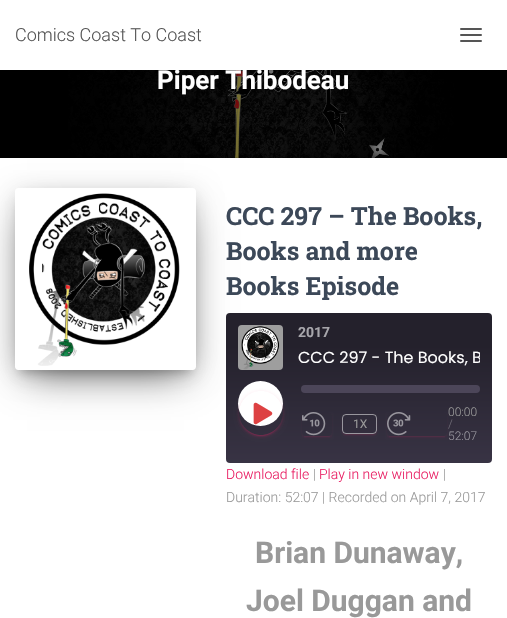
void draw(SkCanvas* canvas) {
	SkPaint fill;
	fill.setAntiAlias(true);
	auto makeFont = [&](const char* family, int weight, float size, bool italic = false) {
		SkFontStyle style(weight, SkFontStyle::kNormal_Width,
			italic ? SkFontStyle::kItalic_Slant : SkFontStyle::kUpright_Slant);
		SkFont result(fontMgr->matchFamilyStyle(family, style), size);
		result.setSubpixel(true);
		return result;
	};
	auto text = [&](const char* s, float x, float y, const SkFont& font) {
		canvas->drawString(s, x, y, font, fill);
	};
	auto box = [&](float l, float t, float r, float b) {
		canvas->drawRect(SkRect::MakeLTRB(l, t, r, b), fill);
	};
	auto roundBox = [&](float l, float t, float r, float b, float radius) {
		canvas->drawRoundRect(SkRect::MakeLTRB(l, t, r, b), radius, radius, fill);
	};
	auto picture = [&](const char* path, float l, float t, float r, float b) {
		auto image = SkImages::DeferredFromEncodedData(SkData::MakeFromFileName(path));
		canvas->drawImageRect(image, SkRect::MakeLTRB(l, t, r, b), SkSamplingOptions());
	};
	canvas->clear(0xFFFFFFFF);
	picture("image0.png", 0, 70, 507, 158);
	fill.setColor(0x1A000000);
	fill.setMaskFilter(SkMaskFilter::MakeBlur(kNormal_SkBlurStyle, 2.5f));
	canvas->drawRect(SkRect::MakeLTRB(2, 6, 505, 72), fill);
	fill.setMaskFilter(nullptr);
	fill.setColor(0x1F000000);
	fill.setMaskFilter(SkMaskFilter::MakeBlur(kNormal_SkBlurStyle, 5));
	canvas->drawRect(SkRect::MakeLTRB(0, 1, 507, 71), fill);
	fill.setMaskFilter(nullptr);
	fill.setColor(0x6B000000);
	fill.setMaskFilter(SkMaskFilter::MakeBlur(kNormal_SkBlurStyle, 5));
	canvas->drawRect(SkRect::MakeLTRB(6, 7, 501, 65), fill);
	fill.setMaskFilter(nullptr);
	fill.setColor(0xFFFFFFFF);
	box(0, 0, 507, 70);
	fill.setColor(0xFF555555);
	roundBox(460, 28, 482, 30, 1);
	roundBox(460, 34, 482, 36, 1);
	roundBox(460, 40, 482, 42, 1);
	fill.setColor(0x1F000000);
	fill.setMaskFilter(SkMaskFilter::MakeBlur(kNormal_SkBlurStyle, 15));
	canvas->drawRect(SkRect::MakeLTRB(-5, 159, 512, 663), fill);
	fill.setMaskFilter(nullptr);
	fill.setColor(0xFFFFFFFF);
	box(0, 158, 507, 618);
	canvas->save();
	canvas->clipPath(SkPathBuilder(SkPathFillType::kEvenOdd).moveTo(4, 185).lineTo(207, 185).lineTo(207, 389).lineTo(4, 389).close().moveTo(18, 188).lineTo(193, 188).cubicTo(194.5f, 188, 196, 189.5f, 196, 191).lineTo(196, 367).cubicTo(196, 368.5f, 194.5f, 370, 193, 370).lineTo(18, 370).cubicTo(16.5f, 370, 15, 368.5f, 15, 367).lineTo(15, 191).cubicTo(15, 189.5f, 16.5f, 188, 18, 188).close().detach(), true);
	fill.setColor(0x33000000);
	fill.setMaskFilter(SkMaskFilter::MakeBlur(kNormal_SkBlurStyle, 5));
	canvas->drawRect(SkRect::MakeLTRB(20, 201, 191, 373), fill);
	fill.setMaskFilter(nullptr);
	canvas->restore();
	canvas->save();
	canvas->clipPath(SkPathBuilder(SkPathFillType::kEvenOdd).moveTo(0, 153).lineTo(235, 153).lineTo(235, 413).lineTo(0, 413).close().moveTo(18, 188).lineTo(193, 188).cubicTo(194.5f, 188, 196, 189.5f, 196, 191).lineTo(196, 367).cubicTo(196, 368.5f, 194.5f, 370, 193, 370).lineTo(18, 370).cubicTo(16.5f, 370, 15, 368.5f, 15, 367).lineTo(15, 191).cubicTo(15, 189.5f, 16.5f, 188, 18, 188).close().detach(), true);
	fill.setColor(0x1F000000);
	fill.setMaskFilter(SkMaskFilter::MakeBlur(kNormal_SkBlurStyle, 12.5f));
	canvas->drawRoundRect(SkRect::MakeLTRB(15, 192, 196, 374), 3, 3, fill);
	fill.setMaskFilter(nullptr);
	canvas->restore();
	canvas->save();
	canvas->clipPath(SkPathBuilder(SkPathFillType::kEvenOdd).moveTo(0, 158).lineTo(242, 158).lineTo(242, 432).lineTo(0, 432).close().moveTo(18, 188).lineTo(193, 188).cubicTo(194.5f, 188, 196, 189.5f, 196, 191).lineTo(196, 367).cubicTo(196, 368.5f, 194.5f, 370, 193, 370).lineTo(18, 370).cubicTo(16.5f, 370, 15, 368.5f, 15, 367).lineTo(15, 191).cubicTo(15, 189.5f, 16.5f, 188, 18, 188).close().detach(), true);
	fill.setColor(0x8F000000);
	fill.setMaskFilter(SkMaskFilter::MakeBlur(kNormal_SkBlurStyle, 19));
	canvas->drawRect(SkRect::MakeLTRB(27, 216, 184, 374), fill);
	fill.setMaskFilter(nullptr);
	canvas->restore();
	picture("image1.png", 29, 193, 180, 366);
	{
		const SkColor colors[] = {0xFF383344, 0xFF24212C};
		const float stops[] = {0.01f, 0.78f};
		const SkPoint ends[] = {{359, 464}, {359, 312}};
		fill.setShader(SkGradientShader::MakeLinear(ends, colors, stops, 2, SkTileMode::kClamp));
		fill.setAlpha(255);
	}
	roundBox(226, 313, 492, 463, 4);
	picture("image2.png", 238, 325, 283, 370);
	fill.setShader(nullptr);
	fill.setColor(0xFFFFFFFF);
	canvas->drawCircle(260.5f, 403.5f, 22.5f, fill);
	canvas->save();
	canvas->clipPath(SkPathBuilder(SkPathFillType::kEvenOdd).moveTo(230, 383).lineTo(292, 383).lineTo(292, 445).lineTo(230, 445).close().moveTo(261, 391).cubicTo(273, 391, 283, 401, 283, 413).cubicTo(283, 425, 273, 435, 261, 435).cubicTo(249, 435, 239, 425, 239, 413).cubicTo(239, 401, 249, 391, 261, 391).close().detach(), true);
	fill.setColor(0x1FE91E63);
	fill.setMaskFilter(SkMaskFilter::MakeBlur(kNormal_SkBlurStyle, 2.5f));
	canvas->drawRoundRect(SkRect::MakeLTRB(239, 392, 283, 436), 22, 22, fill);
	fill.setMaskFilter(nullptr);
	canvas->restore();
	canvas->save();
	canvas->clipPath(SkPathBuilder(SkPathFillType::kEvenOdd).moveTo(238, 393).lineTo(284, 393).lineTo(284, 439).lineTo(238, 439).close().moveTo(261, 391).cubicTo(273, 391, 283, 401, 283, 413).cubicTo(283, 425, 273, 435, 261, 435).cubicTo(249, 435, 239, 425, 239, 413).cubicTo(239, 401, 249, 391, 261, 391).close().detach(), true);
	fill.setColor(0x33E91E63);
	fill.setMaskFilter(SkMaskFilter::MakeBlur(kNormal_SkBlurStyle, 0.5f));
	canvas->drawRoundRect(SkRect::MakeLTRB(241, 396, 281, 436), 20, 20, fill);
	fill.setMaskFilter(nullptr);
	canvas->restore();
	canvas->save();
	canvas->clipPath(SkPathBuilder(SkPathFillType::kEvenOdd).moveTo(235, 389).lineTo(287, 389).lineTo(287, 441).lineTo(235, 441).close().moveTo(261, 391).cubicTo(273, 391, 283, 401, 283, 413).cubicTo(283, 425, 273, 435, 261, 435).cubicTo(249, 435, 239, 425, 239, 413).cubicTo(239, 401, 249, 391, 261, 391).close().detach(), true);
	fill.setColor(0x24E91E63);
	fill.setMaskFilter(SkMaskFilter::MakeBlur(kNormal_SkBlurStyle, 1));
	canvas->drawRoundRect(SkRect::MakeLTRB(239, 393, 283, 437), 22, 22, fill);
	fill.setMaskFilter(nullptr);
	canvas->restore();
	picture("image3.png", 253, 402, 273, 425);
	fill.setColor(0xFF4C4659);
	roundBox(301, 385, 480, 393, 4);
	canvas->save();
	canvas->clipRect(SkRect::MakeLTRB(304, 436, 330, 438));
	fill.setColor(0x338E2751);
	fill.setMaskFilter(SkMaskFilter::MakeBlur(kNormal_SkBlurStyle, 0.5f));
	canvas->drawRoundRect(SkRect::MakeLTRB(304, 417, 330, 437), 1, 1, fill);
	fill.setMaskFilter(nullptr);
	canvas->restore();
	canvas->save();
	canvas->clipPath(SkPathBuilder(SkPathFillType::kEvenOdd).moveTo(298, 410).lineTo(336, 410).lineTo(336, 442).lineTo(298, 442).close().moveTo(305, 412).lineTo(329, 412).cubicTo(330.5f, 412, 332, 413.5f, 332, 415).lineTo(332, 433).cubicTo(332, 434.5f, 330.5f, 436, 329, 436).lineTo(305, 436).cubicTo(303.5f, 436, 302, 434.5f, 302, 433).lineTo(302, 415).cubicTo(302, 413.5f, 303.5f, 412, 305, 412).close().detach(), true);
	fill.setColor(0x12E91E63);
	fill.setMaskFilter(SkMaskFilter::MakeBlur(kNormal_SkBlurStyle, 1));
	canvas->drawRoundRect(SkRect::MakeLTRB(302, 414, 332, 438), 3, 3, fill);
	fill.setMaskFilter(nullptr);
	canvas->restore();
	picture("image4.png", 302, 412, 326, 436);
	canvas->save();
	canvas->clipPath(SkPathBuilder(SkPathFillType::kEvenOdd).moveTo(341, 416).lineTo(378, 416).lineTo(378, 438).lineTo(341, 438).close().moveTo(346, 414).lineTo(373, 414).cubicTo(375, 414, 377, 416, 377, 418).lineTo(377, 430).cubicTo(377, 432, 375, 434, 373, 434).lineTo(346, 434).cubicTo(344, 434, 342, 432, 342, 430).lineTo(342, 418).cubicTo(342, 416, 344, 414, 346, 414).close().detach(), true);
	fill.setColor(0x338E2751);
	fill.setMaskFilter(SkMaskFilter::MakeBlur(kNormal_SkBlurStyle, 0.5f));
	canvas->drawRoundRect(SkRect::MakeLTRB(344, 419, 375, 435), 2, 2, fill);
	fill.setMaskFilter(nullptr);
	canvas->restore();
	canvas->save();
	canvas->clipPath(SkPathBuilder(SkPathFillType::kEvenOdd).moveTo(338, 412).lineTo(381, 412).lineTo(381, 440).lineTo(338, 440).close().moveTo(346, 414).lineTo(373, 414).cubicTo(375, 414, 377, 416, 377, 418).lineTo(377, 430).cubicTo(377, 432, 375, 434, 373, 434).lineTo(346, 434).cubicTo(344, 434, 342, 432, 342, 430).lineTo(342, 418).cubicTo(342, 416, 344, 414, 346, 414).close().detach(), true);
	fill.setColor(0x12E91E63);
	fill.setMaskFilter(SkMaskFilter::MakeBlur(kNormal_SkBlurStyle, 1));
	canvas->drawRoundRect(SkRect::MakeLTRB(342, 416, 377, 436), 4, 4, fill);
	fill.setMaskFilter(nullptr);
	canvas->restore();
	fill.setStyle(SkPaint::kStroke_Style);
	fill.setStrokeWidth(1);
	fill.setColor(0x80FFFFFF);
	canvas->drawRoundRect(SkRect::MakeLTRB(342.5f, 414.5f, 376.5f, 433.5f), 3.5f, 3.5f, fill);
	canvas->save();
	canvas->clipRect(SkRect::MakeLTRB(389, 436, 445, 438));
	fill.setStyle(SkPaint::kFill_Style);
	fill.setColor(0x338E2751);
	fill.setMaskFilter(SkMaskFilter::MakeBlur(kNormal_SkBlurStyle, 0.5f));
	canvas->drawRoundRect(SkRect::MakeLTRB(389, 417, 445, 437), 1, 1, fill);
	fill.setMaskFilter(nullptr);
	canvas->restore();
	canvas->save();
	canvas->clipPath(SkPathBuilder(SkPathFillType::kEvenOdd).moveTo(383, 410).lineTo(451, 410).lineTo(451, 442).lineTo(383, 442).close().moveTo(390, 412).lineTo(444, 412).cubicTo(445.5f, 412, 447, 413.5f, 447, 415).lineTo(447, 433).cubicTo(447, 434.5f, 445.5f, 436, 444, 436).lineTo(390, 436).cubicTo(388.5f, 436, 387, 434.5f, 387, 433).lineTo(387, 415).cubicTo(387, 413.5f, 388.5f, 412, 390, 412).close().detach(), true);
	fill.setColor(0x12E91E63);
	fill.setMaskFilter(SkMaskFilter::MakeBlur(kNormal_SkBlurStyle, 1));
	canvas->drawRoundRect(SkRect::MakeLTRB(387, 414, 447, 438), 3, 3, fill);
	fill.setMaskFilter(nullptr);
	canvas->restore();
	picture("image5.png", 387, 412, 411, 436);
	auto font1 = makeFont("Roboto", 300, 18);
	fill.setColor(0xFF555555);
	text("Comics Coast To Coast", 15, 41, font1);
	auto font2 = makeFont("Roboto", 700, 26);
	fill.setColor(0xFFFFFFFF);
	text("Piper Thibodeau", 157, 89, font2);
	auto font3 = makeFont("Roboto Slab", 700, 25);
	fill.setColor(0xFF3C4858);
	text("CCC 297 – The Books,", 226, 225, font3);
	text("Books and more", 226, 260, font3);
	text("Books Episode", 226, 295, font3);
	auto font4 = makeFont("Roboto", 700, 14);
	fill.setColor(0xFFA7A6AB);
	text("2017", 298, 337, font4);
	canvas->save();
	canvas->clipRect(SkRect::MakeLTRB(298, 348, 480, 373));
	auto font5 = makeFont("Poppins", 400, 16);
	fill.setColor(0xFFFFFFFF);
	text("CCC 297 - The Books, B", 298, 363, font5);
	canvas->restore();
	auto font6 = makeFont("Roboto", 400, 12);
	fill.setColor(0xFF999999);
	text("1X", 353, 428, font6);
	auto font7 = makeFont("Roboto", 300, 12);
	text("00:00", 448, 416, font7);
	fill.setColor(0xFF706C77);
	text("/", 448, 428, font7);
	fill.setColor(0xFF99979F);
	text("52:07", 448, 440, font7);
	auto font8 = makeFont("Roboto", 300, 14);
	fill.setColor(0xFFE91E63);
	text("Download file", 226, 479, font8);
	fill.setColor(0xFF999999);
	text("|", 313, 479, font8);
	fill.setColor(0xFFE91E63);
	text("Play in new window", 319, 479, font8);
	fill.setColor(0xFF999999);
	text("|", 443, 479, font8);
	text("Duration: 52:07 | Recorded on April 7, 2017", 226, 502, font8);
	auto font9 = makeFont("Roboto", 700, 30);
	text("Brian Dunaway,", 255, 563, font9);
	text("Joel Duggan and", 246, 611, font9);
}
